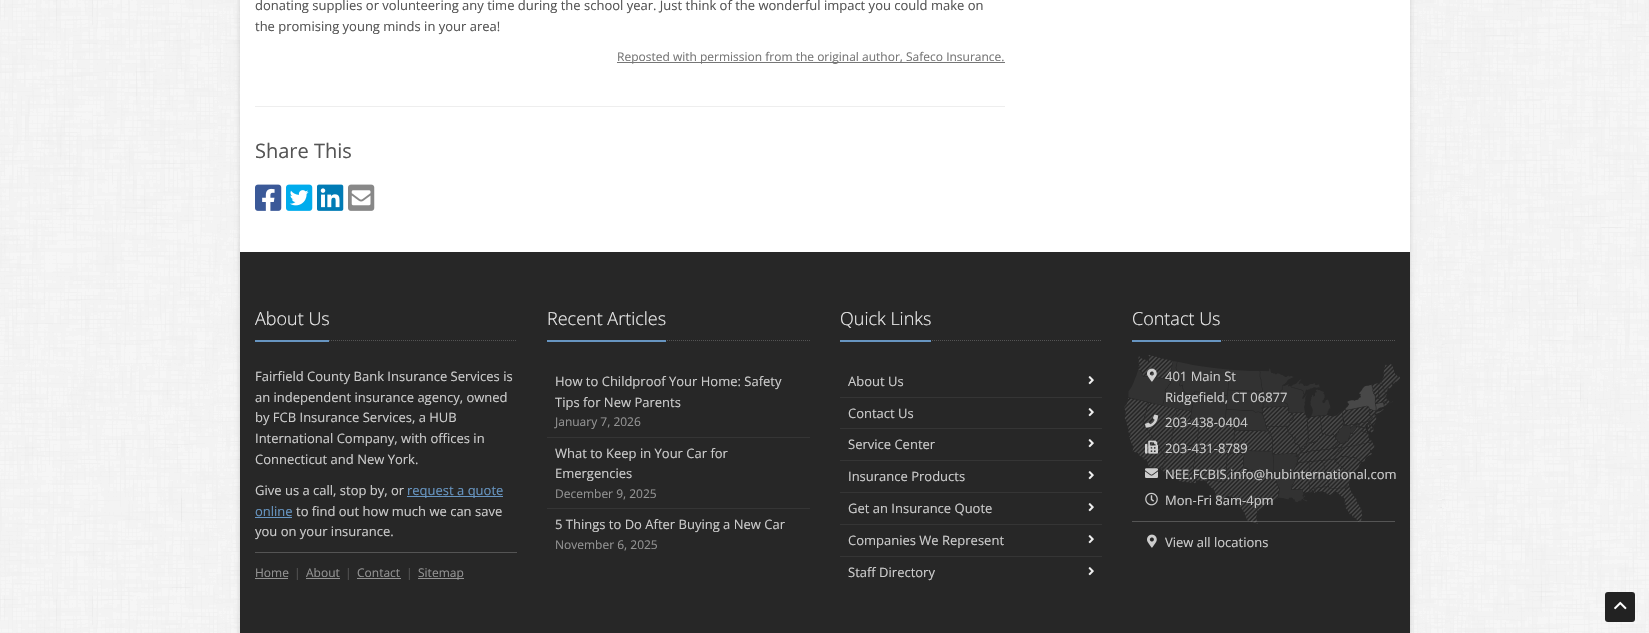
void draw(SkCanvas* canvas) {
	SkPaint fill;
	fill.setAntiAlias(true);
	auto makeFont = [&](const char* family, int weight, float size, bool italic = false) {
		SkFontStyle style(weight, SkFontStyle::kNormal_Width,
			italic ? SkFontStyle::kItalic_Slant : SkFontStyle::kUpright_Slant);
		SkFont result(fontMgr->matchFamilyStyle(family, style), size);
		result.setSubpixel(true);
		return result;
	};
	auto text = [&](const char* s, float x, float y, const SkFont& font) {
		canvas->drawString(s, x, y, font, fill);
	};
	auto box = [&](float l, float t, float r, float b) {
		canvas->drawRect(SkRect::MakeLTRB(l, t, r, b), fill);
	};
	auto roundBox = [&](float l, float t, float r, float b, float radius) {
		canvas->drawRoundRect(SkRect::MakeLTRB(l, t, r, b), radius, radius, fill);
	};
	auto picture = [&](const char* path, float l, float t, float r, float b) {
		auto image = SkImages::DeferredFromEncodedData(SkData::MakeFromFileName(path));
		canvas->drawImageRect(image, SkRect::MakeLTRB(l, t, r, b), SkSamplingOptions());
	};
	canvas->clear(0xFFFFFFFF);
	picture("image0.png", 0, 0, 1649, 633);
	fill.setColor(0x29000000);
	fill.setMaskFilter(SkMaskFilter::MakeBlur(kNormal_SkBlurStyle, 2.5f));
	canvas->drawRect(SkRect::MakeLTRB(240, -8, 1410, 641), fill);
	fill.setMaskFilter(nullptr);
	fill.setColor(0xFFFFFFFF);
	box(240, 0, 1410, 252);
	fill.setColor(0xFF767676);
	box(617, 62, 1005, 63);
	fill.setColor(0xFFEEEEEE);
	box(255, 106, 1005, 107);
	picture("image1.png", 255, 184, 282, 211);
	picture("image2.png", 286, 184, 313, 211);
	picture("image3.png", 317, 184, 344, 211);
	picture("image4.png", 348, 184, 375, 211);
	fill.setColor(0xFF272727);
	box(240, 252, 1410, 633);
	fill.setStyle(SkPaint::kStroke_Style);
	fill.setStrokeWidth(1);
	fill.setColor(0xFF545454);
	fill.setPathEffect(SkDashPathEffect::Make({{1, 1}}, 0));
	canvas->drawPath(SkPathBuilder().moveTo(255, 340.5f).lineTo(517, 340.5f).detach(), fill);
	fill.setPathEffect(nullptr);
	fill.setStyle(SkPaint::kFill_Style);
	fill.setColor(0xFF6795C1);
	box(255, 340, 329, 342);
	box(407, 496, 503, 497);
	box(255, 517, 292, 518);
	fill.setColor(0xFF545454);
	box(255, 552, 517, 553);
	fill.setColor(0xFF939393);
	box(255, 578, 288, 579);
	box(306, 578, 340, 579);
	box(357, 578, 401, 579);
	box(418, 578, 464, 579);
	fill.setStyle(SkPaint::kStroke_Style);
	fill.setColor(0xFF545454);
	fill.setPathEffect(SkDashPathEffect::Make({{1, 1}}, 0));
	canvas->drawPath(SkPathBuilder().moveTo(547, 340.5f).lineTo(810, 340.5f).detach(), fill);
	fill.setPathEffect(nullptr);
	fill.setStyle(SkPaint::kFill_Style);
	fill.setColor(0xFF6795C1);
	box(547, 340, 666, 342);
	fill.setColor(0xFF353535);
	box(547, 437, 810, 438);
	box(547, 508, 810, 509);
	fill.setStyle(SkPaint::kStroke_Style);
	fill.setColor(0xFF545454);
	fill.setPathEffect(SkDashPathEffect::Make({{1, 1}}, 0));
	canvas->drawPath(SkPathBuilder().moveTo(840, 340.5f).lineTo(1102, 340.5f).detach(), fill);
	fill.setPathEffect(nullptr);
	fill.setStyle(SkPaint::kFill_Style);
	fill.setColor(0xFF6795C1);
	box(840, 340, 931, 342);
	picture("image5.png", 1088, 376, 1094, 385);
	fill.setColor(0xFF353535);
	box(840, 397, 1102, 398);
	picture("image5.png", 1088, 408, 1094, 417);
	box(840, 428, 1102, 429);
	picture("image5.png", 1088, 439, 1094, 448);
	box(840, 460, 1102, 461);
	picture("image5.png", 1088, 471, 1094, 480);
	box(840, 492, 1102, 493);
	picture("image5.png", 1088, 503, 1094, 512);
	box(840, 524, 1102, 525);
	picture("image5.png", 1088, 535, 1094, 544);
	box(840, 556, 1102, 557);
	picture("image5.png", 1088, 567, 1094, 576);
	picture("image6.png", 1124, 355, 1400, 524);
	fill.setStyle(SkPaint::kStroke_Style);
	fill.setColor(0xFF545454);
	fill.setPathEffect(SkDashPathEffect::Make({{1, 1}}, 0));
	canvas->drawPath(SkPathBuilder().moveTo(1132, 340.5f).lineTo(1395, 340.5f).detach(), fill);
	fill.setPathEffect(nullptr);
	fill.setStyle(SkPaint::kFill_Style);
	fill.setColor(0xFF6795C1);
	box(1132, 340, 1221, 342);
	picture("image7.png", 1147, 368, 1157, 382);
	picture("image8.png", 1145, 414, 1158, 428);
	picture("image9.png", 1145, 440, 1158, 454);
	picture("image10.png", 1145, 468, 1158, 478);
	picture("image11.png", 1145, 492, 1158, 506);
	fill.setColor(0x36FFFFFF);
	box(1132, 521, 1395, 522);
	picture("image12.png", 1147, 534, 1157, 548);
	fill.setColor(0xFF222222);
	roundBox(1605, 592, 1635, 622, 3);
	picture("image13.png", 1614, 601, 1627, 610);
	auto font1 = makeFont("Open Sans", 400, 13);
	fill.setColor(0xFF555555);
	text("donating supplies or volunteering any time during the school year. Just think of the wonderful impact you could make on", 255, 10, font1);
	text("the promising young minds in your area!", 255, 31, font1);
	auto font2 = makeFont("Open Sans", 400, 12);
	fill.setColor(0xFF767676);
	text("Reposted with permission from the original author, Safeco Insurance.", 617, 61, font2);
	auto font3 = makeFont("Open Sans", 400, 20);
	fill.setColor(0xFF555555);
	text("Share This", 255, 158, font3);
	auto font4 = makeFont("Open Sans", 300, 18);
	fill.setColor(0xFFEEEEEE);
	text("About Us", 255, 325, font4);
	fill.setColor(0xFFCCCCCC);
	text("Fairfield County Bank Insurance Services is", 255, 381, font1);
	text("an independent insurance agency, owned", 255, 402, font1);
	text("by FCB Insurance Services, a HUB", 255, 422, font1);
	text("International Company, with offices in", 255, 443, font1);
	text("Connecticut and New York.", 255, 464, font1);
	text("Give us a call, stop by, or", 255, 495, font1);
	fill.setColor(0xFF6795C1);
	text("request a quote", 407, 495, font1);
	text("online", 255, 516, font1);
	fill.setColor(0xFFCCCCCC);
	text("to find out how much we can save", 296, 516, font1);
	text("you on your insurance.", 255, 536, font1);
	fill.setColor(0xFF939393);
	text("Home", 255, 577, font2);
	fill.setColor(0xFF555555);
	text("|", 294, 577, font2);
	fill.setColor(0xFF939393);
	text("About", 306, 577, font2);
	fill.setColor(0xFF555555);
	text("|", 345, 577, font2);
	fill.setColor(0xFF939393);
	text("Contact", 357, 577, font2);
	fill.setColor(0xFF555555);
	text("|", 406, 577, font2);
	fill.setColor(0xFF939393);
	text("Sitemap", 418, 577, font2);
	fill.setColor(0xFFEEEEEE);
	text("Recent Articles", 547, 325, font4);
	fill.setColor(0xFFCCCCCC);
	text("How to Childproof Your Home: Safety", 555, 386, font1);
	text("Tips for New Parents", 555, 407, font1);
	fill.setColor(0xFF939393);
	text("January 7, 2026", 555, 426, font2);
	fill.setColor(0xFFCCCCCC);
	text("What to Keep in Your Car for", 555, 458, font1);
	text("Emergencies", 555, 478, font1);
	fill.setColor(0xFF939393);
	text("December 9, 2025", 555, 498, font2);
	fill.setColor(0xFFCCCCCC);
	text("5 Things to Do After Buying a New Car", 555, 529, font1);
	fill.setColor(0xFF939393);
	text("November 6, 2025", 555, 549, font2);
	fill.setColor(0xFFEEEEEE);
	text("Quick Links", 840, 325, font4);
	fill.setColor(0xFFCCCCCC);
	text("About Us", 848, 386, font1);
	text("Contact Us", 848, 418, font1);
	text("Service Center", 848, 449, font1);
	text("Insurance Products", 848, 481, font1);
	text("Get an Insurance Quote", 848, 513, font1);
	text("Companies We Represent", 848, 545, font1);
	text("Staff Directory", 848, 577, font1);
	fill.setColor(0xFFEEEEEE);
	text("Contact Us", 1132, 325, font4);
	fill.setColor(0xFFCCCCCC);
	text("401 Main St", 1165, 381, font1);
	text("Ridgefield, CT 06877", 1165, 402, font1);
	text("203-438-0404", 1165, 427, font1);
	text("203-431-8789", 1165, 453, font1);
	text("NEE.FCBIS.info@hubinternational.com", 1165, 479, font1);
	text("Mon-Fri 8am-4pm", 1165, 505, font1);
	text("View all locations", 1165, 547, font1);
}
